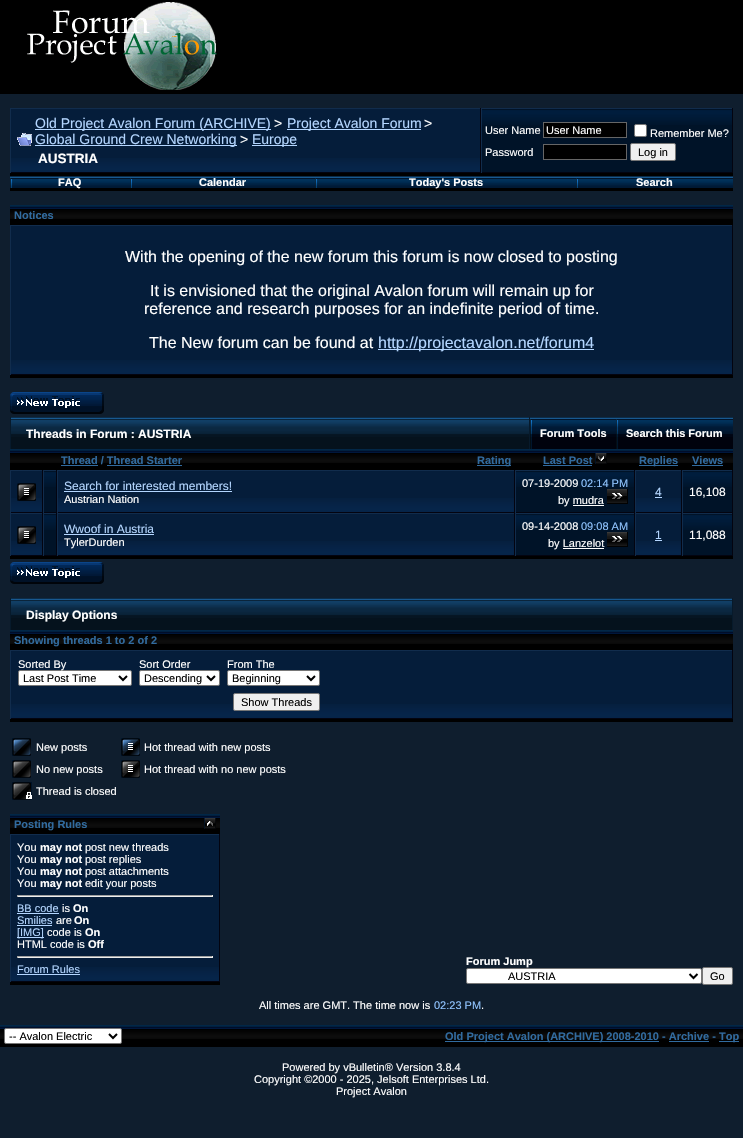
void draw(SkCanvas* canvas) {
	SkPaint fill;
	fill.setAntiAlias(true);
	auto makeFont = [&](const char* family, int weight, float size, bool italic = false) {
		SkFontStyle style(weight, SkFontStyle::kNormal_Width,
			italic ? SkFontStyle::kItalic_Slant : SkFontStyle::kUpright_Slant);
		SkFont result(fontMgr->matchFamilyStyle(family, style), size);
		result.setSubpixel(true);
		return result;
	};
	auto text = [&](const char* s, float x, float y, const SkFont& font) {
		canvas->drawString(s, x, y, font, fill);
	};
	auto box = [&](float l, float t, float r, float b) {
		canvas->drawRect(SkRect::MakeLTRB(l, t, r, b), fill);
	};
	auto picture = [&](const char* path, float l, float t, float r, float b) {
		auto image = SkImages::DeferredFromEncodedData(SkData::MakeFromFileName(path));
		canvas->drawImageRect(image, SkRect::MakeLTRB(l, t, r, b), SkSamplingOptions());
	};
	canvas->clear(0xFF0F1E2E);
	fill.setColor(0xFF000000);
	box(0, 0, 743, 94);
	picture("image0.png", 27, 2, 217, 90);
	box(10, 173, 733, 176);
	fill.setColor(0xFF051D3A);
	box(11, 109, 480, 158);
	picture("image1.png", 11, 158, 480, 172);
	fill.setColor(0xFF112C4C);
	box(10, 108, 733, 109);
	fill.setColor(0xFF030410);
	box(480, 108, 481, 173);
	box(10, 172, 481, 173);
	fill.setColor(0xFF112C4C);
	box(10, 108, 11, 173);
	picture("image2.png", 17, 133, 32, 146);
	fill.setColor(0xFFB4D6FF);
	box(35, 129, 271, 130);
	box(287, 129, 421, 130);
	box(35, 145, 237, 146);
	box(252, 145, 297, 146);
	fill.setColor(0xFF001328);
	box(482, 109, 732, 172);
	picture("image3.png", 482, 110, 732, 125);
	fill.setColor(0xFF030410);
	box(732, 108, 733, 173);
	box(481, 172, 733, 173);
	fill.setColor(0xFF112C4C);
	box(481, 108, 482, 173);
	fill.setColor(0xFF000000);
	canvas->drawRect(SkRect::MakeLTRB(543.5f, 122.5f, 626.5f, 137.5f), fill);
	fill.setStyle(SkPaint::kStroke_Style);
	fill.setStrokeWidth(1);
	fill.setColor(0xFF666666);
	canvas->drawRect(SkRect::MakeLTRB(543.5f, 122.5f, 626.5f, 137.5f), fill);
	fill.setStyle(SkPaint::kFill_Style);
	fill.setColor(0xFFFFFFFF);
	canvas->drawRoundRect(SkRect::MakeLTRB(634.5f, 124.5f, 646.5f, 136.5f), 1.5f, 1.5f, fill);
	fill.setStyle(SkPaint::kStroke_Style);
	fill.setColor(0xFF767676);
	canvas->drawRoundRect(SkRect::MakeLTRB(634.5f, 124.5f, 646.5f, 136.5f), 1.5f, 1.5f, fill);
	fill.setStyle(SkPaint::kFill_Style);
	fill.setColor(0xFF000000);
	canvas->drawRect(SkRect::MakeLTRB(543.5f, 144.5f, 626.5f, 159.5f), fill);
	fill.setStyle(SkPaint::kStroke_Style);
	fill.setColor(0xFF666666);
	canvas->drawRect(SkRect::MakeLTRB(543.5f, 144.5f, 626.5f, 159.5f), fill);
	fill.setStyle(SkPaint::kFill_Style);
	fill.setColor(0xFFEFEFEF);
	canvas->drawRoundRect(SkRect::MakeLTRB(630.5f, 143.5f, 675.5f, 160.5f), 1.5f, 1.5f, fill);
	fill.setStyle(SkPaint::kStroke_Style);
	fill.setColor(0xFF767676);
	canvas->drawRoundRect(SkRect::MakeLTRB(630.5f, 143.5f, 675.5f, 160.5f), 1.5f, 1.5f, fill);
	fill.setStyle(SkPaint::kFill_Style);
	fill.setColor(0xFF000000);
	box(10, 188, 733, 191);
	picture("image4.png", 10, 176, 130, 188);
	picture("image5.png", 130, 176, 315, 188);
	picture("image6.png", 315, 176, 576, 188);
	picture("image7.png", 576, 176, 733, 188);
	box(10, 375, 733, 378);
	box(10, 219, 733, 225);
	picture("image8.png", 10, 205, 733, 219);
	fill.setColor(0xFF051D3A);
	box(11, 226, 732, 360);
	picture("image9.png", 11, 360, 732, 374);
	fill.setColor(0xFF112C4C);
	box(10, 225, 733, 226);
	fill.setColor(0xFF030410);
	box(732, 225, 733, 375);
	box(10, 374, 733, 375);
	fill.setColor(0xFF112C4C);
	box(10, 225, 11, 375);
	fill.setColor(0xFFB4D6FF);
	box(378, 349, 594, 350);
	picture("image10.png", 10, 392, 104, 414);
	fill.setColor(0xFF05121D);
	box(11, 437, 529, 449);
	picture("image11.png", 11, 417, 529, 437);
	fill.setColor(0xFF071A2B);
	box(529, 417, 530, 449);
	box(10, 417, 11, 449);
	picture("image12.png", 530, 417, 616, 449);
	picture("image13.png", 616, 417, 733, 449);
	fill.setColor(0xFF000000);
	box(10, 556, 733, 559);
	box(10, 463, 733, 470);
	picture("image14.png", 10, 449, 57, 463);
	picture("image15.png", 57, 449, 515, 463);
	fill.setColor(0xFF316B9F);
	box(61, 465, 98, 466);
	box(477, 465, 511, 466);
	box(107, 465, 182, 466);
	picture("image16.png", 515, 449, 635, 463);
	box(543, 465, 592, 466);
	picture("image17.png", 595, 453, 607, 464);
	picture("image14.png", 635, 449, 682, 463);
	box(639, 465, 678, 466);
	picture("image18.png", 682, 449, 733, 463);
	box(692, 465, 723, 466);
	fill.setColor(0xFF051D3A);
	box(11, 471, 42, 498);
	picture("image19.png", 11, 498, 42, 512);
	fill.setColor(0xFF112C4C);
	box(10, 470, 733, 471);
	fill.setColor(0xFF030410);
	box(42, 470, 43, 513);
	box(10, 512, 43, 513);
	fill.setColor(0xFF112C4C);
	box(10, 470, 11, 513);
	picture("image20.png", 17, 483, 36, 501);
	fill.setColor(0xFF001328);
	box(44, 471, 56, 512);
	picture("image21.png", 44, 472, 56, 487);
	fill.setColor(0xFF030410);
	box(56, 470, 57, 513);
	box(43, 512, 57, 513);
	fill.setColor(0xFF112C4C);
	box(43, 470, 44, 513);
	fill.setColor(0xFF051D3A);
	box(58, 471, 514, 498);
	picture("image22.png", 58, 498, 514, 512);
	fill.setColor(0xFF030410);
	box(514, 470, 515, 513);
	box(57, 512, 515, 513);
	fill.setColor(0xFF112C4C);
	box(57, 470, 58, 513);
	fill.setColor(0xFFB4D6FF);
	box(64, 491, 232, 492);
	fill.setColor(0xFF001328);
	box(516, 471, 634, 512);
	picture("image23.png", 516, 472, 634, 487);
	fill.setColor(0xFF030410);
	box(634, 470, 635, 513);
	box(515, 512, 635, 513);
	fill.setColor(0xFF112C4C);
	box(515, 470, 516, 513);
	picture("image24.png", 607, 489, 628, 504);
	fill.setColor(0xFFFFFFFF);
	box(573, 505, 604, 506);
	fill.setColor(0xFF051D3A);
	box(636, 471, 681, 498);
	picture("image25.png", 636, 498, 681, 512);
	fill.setColor(0xFF030410);
	box(681, 470, 682, 513);
	box(635, 512, 682, 513);
	fill.setColor(0xFF112C4C);
	box(635, 470, 636, 513);
	fill.setColor(0xFFB4D6FF);
	box(655, 497, 662, 498);
	fill.setColor(0xFF001328);
	box(683, 471, 732, 512);
	picture("image26.png", 683, 472, 732, 487);
	fill.setColor(0xFF030410);
	box(732, 470, 733, 513);
	box(682, 512, 733, 513);
	fill.setColor(0xFF112C4C);
	box(682, 470, 683, 513);
	fill.setColor(0xFF051D3A);
	box(11, 514, 42, 541);
	picture("image19.png", 11, 541, 42, 555);
	fill.setColor(0xFF112C4C);
	box(10, 513, 733, 514);
	fill.setColor(0xFF030410);
	box(42, 513, 43, 556);
	box(10, 555, 43, 556);
	fill.setColor(0xFF112C4C);
	box(10, 513, 11, 556);
	picture("image20.png", 17, 526, 36, 544);
	fill.setColor(0xFF001328);
	box(44, 514, 56, 555);
	picture("image21.png", 44, 515, 56, 530);
	fill.setColor(0xFF030410);
	box(56, 513, 57, 556);
	box(43, 555, 57, 556);
	fill.setColor(0xFF112C4C);
	box(43, 513, 44, 556);
	fill.setColor(0xFF051D3A);
	box(58, 514, 514, 541);
	picture("image22.png", 58, 541, 514, 555);
	fill.setColor(0xFF030410);
	box(514, 513, 515, 556);
	box(57, 555, 515, 556);
	fill.setColor(0xFF112C4C);
	box(57, 513, 58, 556);
	fill.setColor(0xFFB4D6FF);
	box(64, 534, 154, 535);
	fill.setColor(0xFF001328);
	box(516, 514, 634, 555);
	picture("image23.png", 516, 515, 634, 530);
	fill.setColor(0xFF030410);
	box(634, 513, 635, 556);
	box(515, 555, 635, 556);
	fill.setColor(0xFF112C4C);
	box(515, 513, 516, 556);
	picture("image24.png", 607, 532, 628, 547);
	fill.setColor(0xFFFFFFFF);
	box(563, 548, 604, 549);
	fill.setColor(0xFF051D3A);
	box(636, 514, 681, 541);
	picture("image25.png", 636, 541, 681, 555);
	fill.setColor(0xFF030410);
	box(681, 513, 682, 556);
	box(635, 555, 682, 556);
	fill.setColor(0xFF112C4C);
	box(635, 513, 636, 556);
	fill.setColor(0xFFB4D6FF);
	box(655, 540, 662, 541);
	fill.setColor(0xFF001328);
	box(683, 514, 732, 555);
	picture("image26.png", 683, 515, 732, 530);
	fill.setColor(0xFF030410);
	box(732, 513, 733, 556);
	box(682, 555, 733, 556);
	fill.setColor(0xFF112C4C);
	box(682, 513, 683, 556);
	picture("image10.png", 10, 562, 104, 584);
	fill.setColor(0xFF000000);
	box(10, 719, 733, 722);
	fill.setColor(0xFF05121D);
	box(11, 618, 732, 630);
	picture("image27.png", 11, 598, 732, 618);
	fill.setColor(0xFF071A2B);
	box(732, 598, 733, 630);
	box(10, 598, 11, 630);
	fill.setColor(0xFF000000);
	box(10, 644, 733, 650);
	picture("image8.png", 10, 630, 733, 644);
	fill.setColor(0xFF051D3A);
	box(11, 651, 732, 704);
	picture("image9.png", 11, 704, 732, 718);
	fill.setColor(0xFF112C4C);
	box(10, 650, 733, 651);
	fill.setColor(0xFF030410);
	box(732, 650, 733, 719);
	box(10, 718, 733, 719);
	fill.setColor(0xFF112C4C);
	box(10, 650, 11, 719);
	fill.setColor(0xFFFFFFFF);
	canvas->drawRoundRect(SkRect::MakeLTRB(18.5f, 670.5f, 131.5f, 685.5f), 1.5f, 1.5f, fill);
	fill.setStyle(SkPaint::kStroke_Style);
	fill.setColor(0xFF767676);
	canvas->drawRoundRect(SkRect::MakeLTRB(18.5f, 670.5f, 131.5f, 685.5f), 1.5f, 1.5f, fill);
	fill.setStrokeWidth(2);
	fill.setColor(0xFF000000);
	canvas->drawPath(SkPathBuilder().moveTo(119, 676).lineTo(123, 680).lineTo(127, 676).detach(), fill);
	fill.setStyle(SkPaint::kFill_Style);
	fill.setColor(0xFFFFFFFF);
	canvas->drawRoundRect(SkRect::MakeLTRB(139.5f, 670.5f, 219.5f, 685.5f), 1.5f, 1.5f, fill);
	fill.setStyle(SkPaint::kStroke_Style);
	fill.setStrokeWidth(1);
	fill.setColor(0xFF767676);
	canvas->drawRoundRect(SkRect::MakeLTRB(139.5f, 670.5f, 219.5f, 685.5f), 1.5f, 1.5f, fill);
	fill.setStrokeWidth(2);
	fill.setColor(0xFF000000);
	canvas->drawPath(SkPathBuilder().moveTo(207, 676).lineTo(211, 680).lineTo(215, 676).detach(), fill);
	fill.setStyle(SkPaint::kFill_Style);
	fill.setColor(0xFFFFFFFF);
	canvas->drawRoundRect(SkRect::MakeLTRB(227.5f, 670.5f, 319.5f, 685.5f), 1.5f, 1.5f, fill);
	fill.setStyle(SkPaint::kStroke_Style);
	fill.setStrokeWidth(1);
	fill.setColor(0xFF767676);
	canvas->drawRoundRect(SkRect::MakeLTRB(227.5f, 670.5f, 319.5f, 685.5f), 1.5f, 1.5f, fill);
	fill.setStrokeWidth(2);
	fill.setColor(0xFF000000);
	canvas->drawPath(SkPathBuilder().moveTo(307, 676).lineTo(311, 680).lineTo(315, 676).detach(), fill);
	fill.setStyle(SkPaint::kFill_Style);
	fill.setColor(0xFFEFEFEF);
	canvas->drawRoundRect(SkRect::MakeLTRB(233.5f, 693.5f, 319.5f, 710.5f), 1.5f, 1.5f, fill);
	fill.setStyle(SkPaint::kStroke_Style);
	fill.setStrokeWidth(1);
	fill.setColor(0xFF767676);
	canvas->drawRoundRect(SkRect::MakeLTRB(233.5f, 693.5f, 319.5f, 710.5f), 1.5f, 1.5f, fill);
	picture("image28.png", 12, 738, 31, 756);
	picture("image29.png", 121, 738, 140, 756);
	picture("image30.png", 12, 760, 31, 778);
	picture("image20.png", 121, 760, 140, 778);
	picture("image31.png", 12, 782, 32, 800);
	fill.setStyle(SkPaint::kFill_Style);
	fill.setColor(0xFF000000);
	box(10, 982, 220, 985);
	box(10, 828, 220, 834);
	picture("image32.png", 10, 814, 220, 828);
	picture("image33.png", 204, 818, 216, 829);
	fill.setColor(0xFF051D3A);
	box(11, 835, 219, 967);
	picture("image34.png", 11, 967, 219, 981);
	fill.setColor(0xFF112C4C);
	box(10, 834, 220, 835);
	fill.setColor(0xFF030410);
	box(219, 834, 220, 982);
	box(10, 981, 220, 982);
	fill.setColor(0xFF112C4C);
	box(10, 834, 11, 982);
	fill.setColor(0xFF9F9F9F);
	box(17, 895, 213, 896);
	fill.setColor(0xFFEEEEEE);
	box(212, 895, 213, 897);
	box(17, 896, 213, 897);
	fill.setColor(0xFF9F9F9F);
	box(17, 895, 18, 897);
	fill.setColor(0xFFB4D6FF);
	box(17, 913, 59, 914);
	box(17, 925, 52, 926);
	box(17, 937, 44, 938);
	fill.setColor(0xFF9F9F9F);
	box(17, 956, 213, 957);
	fill.setColor(0xFFEEEEEE);
	box(212, 956, 213, 958);
	box(17, 957, 213, 958);
	fill.setColor(0xFF9F9F9F);
	box(17, 956, 18, 958);
	fill.setColor(0xFFB4D6FF);
	box(17, 974, 80, 975);
	fill.setColor(0xFFFFFFFF);
	canvas->drawRoundRect(SkRect::MakeLTRB(466.5f, 968.5f, 701.5f, 983.5f), 1.5f, 1.5f, fill);
	fill.setStyle(SkPaint::kStroke_Style);
	fill.setColor(0xFF767676);
	canvas->drawRoundRect(SkRect::MakeLTRB(466.5f, 968.5f, 701.5f, 983.5f), 1.5f, 1.5f, fill);
	fill.setStrokeWidth(2);
	fill.setColor(0xFF000000);
	canvas->drawPath(SkPathBuilder().moveTo(689.5f, 974).lineTo(693.5f, 978).lineTo(697.5f, 974).detach(), fill);
	fill.setStyle(SkPaint::kFill_Style);
	fill.setColor(0xFFEFEFEF);
	canvas->drawRoundRect(SkRect::MakeLTRB(702.5f, 967.5f, 732.5f, 984.5f), 1.5f, 1.5f, fill);
	fill.setStyle(SkPaint::kStroke_Style);
	fill.setStrokeWidth(1);
	fill.setColor(0xFF767676);
	canvas->drawRoundRect(SkRect::MakeLTRB(702.5f, 967.5f, 732.5f, 984.5f), 1.5f, 1.5f, fill);
	fill.setStyle(SkPaint::kFill_Style);
	fill.setColor(0xFF000000);
	box(0, 1039, 743, 1047);
	picture("image35.png", 0, 1025, 126, 1039);
	fill.setColor(0xFFFFFFFF);
	canvas->drawRoundRect(SkRect::MakeLTRB(4.5f, 1028.5f, 121.5f, 1043.5f), 1.5f, 1.5f, fill);
	fill.setStyle(SkPaint::kStroke_Style);
	fill.setColor(0xFF767676);
	canvas->drawRoundRect(SkRect::MakeLTRB(4.5f, 1028.5f, 121.5f, 1043.5f), 1.5f, 1.5f, fill);
	fill.setStrokeWidth(2);
	fill.setColor(0xFF000000);
	canvas->drawPath(SkPathBuilder().moveTo(109, 1034).lineTo(113, 1038).lineTo(117, 1034).detach(), fill);
	picture("image36.png", 126, 1025, 743, 1039);
	fill.setStyle(SkPaint::kFill_Style);
	fill.setColor(0xFF316B9F);
	box(445, 1041, 659, 1042);
	box(669, 1041, 709, 1042);
	box(719, 1041, 739, 1042);
	auto font1 = makeFont("Liberation Sans", 400, 14);
	fill.setColor(0xFFB4D6FF);
	text("Old Project Avalon Forum (ARCHIVE)", 35, 128, font1);
	fill.setColor(0xFFFFFFFF);
	text(">", 274, 128, font1);
	fill.setColor(0xFFB4D6FF);
	text("Project Avalon Forum", 287, 128, font1);
	fill.setColor(0xFFFFFFFF);
	text(">", 424, 128, font1);
	fill.setColor(0xFFB4D6FF);
	text("Global Ground Crew Networking", 35, 144, font1);
	fill.setColor(0xFFFFFFFF);
	text(">", 240, 144, font1);
	fill.setColor(0xFFB4D6FF);
	text("Europe", 252, 144, font1);
	auto font2 = makeFont("Liberation Sans", 700, 13.5f);
	fill.setColor(0xFFFFFFFF);
	text("AUSTRIA", 38, 163, font2);
	auto font3 = makeFont("Liberation Sans", 400, 11);
	text("User Name", 485, 134, font3);
	text("User Name", 546, 134, font3);
	text("Remember Me?", 650, 137, font3);
	text("Password", 485, 156, font3);
	fill.setColor(0xFF000000);
	text("Log in", 638, 156, font3);
	auto font4 = makeFont("Liberation Sans", 700, 11);
	fill.setColor(0xFFFFFFFF);
	text("FAQ", 58, 186, font4);
	text("Calendar", 199, 186, font4);
	text("Today's Posts", 409, 186, font4);
	text("Search", 636, 186, font4);
	fill.setColor(0xFF316B9F);
	text("Notices", 14, 219, font4);
	auto font5 = makeFont("Liberation Sans", 400, 16);
	fill.setColor(0xFFFFFFFF);
	text("With the opening of the new forum this forum is now closed to posting", 125, 262, font5);
	text("It is envisioned that the original Avalon forum will remain up for", 150, 296, font5);
	text("reference and research purposes for an indefinite period of time.", 144, 314, font5);
	text("The New forum can be found at", 149, 348, font5);
	fill.setColor(0xFFB4D6FF);
	text("http://projectavalon.net/forum4", 378, 348, font5);
	auto font6 = makeFont("Liberation Sans", 700, 12);
	fill.setColor(0xFFFFFFFF);
	text("Threads in Forum : AUSTRIA", 26, 438, font6);
	text("Forum Tools", 540, 437, font4);
	text("Search this Forum", 626, 437, font4);
	fill.setColor(0xFF316B9F);
	text("Thread / Thread Starter", 61, 464, font4);
	text("Rating", 477, 464, font4);
	text("Last Post", 543, 464, font4);
	text("Replies", 639, 464, font4);
	text("Views", 692, 464, font4);
	auto font7 = makeFont("Liberation Sans", 400, 12);
	fill.setColor(0xFFB4D6FF);
	text("Search for interested members!", 64, 490, font7);
	fill.setColor(0xFFFFFFFF);
	text("Austrian Nation", 64, 503, font3);
	text("07-19-2009", 522, 487, font3);
	fill.setColor(0xFF90C4FF);
	text("02:14 PM", 581, 487, font3);
	fill.setColor(0xFFFFFFFF);
	text("by mudra", 558, 504, font3);
	fill.setColor(0xFFB4D6FF);
	text("4", 655, 496, font7);
	fill.setColor(0xFFFFFFFF);
	text("16,108", 689, 496, font7);
	fill.setColor(0xFFB4D6FF);
	text("Wwoof in Austria", 64, 533, font7);
	fill.setColor(0xFFFFFFFF);
	text("TylerDurden", 64, 546, font3);
	text("09-14-2008", 522, 530, font3);
	fill.setColor(0xFF90C4FF);
	text("09:08 AM", 581, 530, font3);
	fill.setColor(0xFFFFFFFF);
	text("by Lanzelot", 548, 547, font3);
	fill.setColor(0xFFB4D6FF);
	text("1", 655, 539, font7);
	fill.setColor(0xFFFFFFFF);
	text("11,088", 689, 539, font7);
	text("Display Options", 26, 619, font6);
	fill.setColor(0xFF316B9F);
	text("Showing threads 1 to 2 of 2", 14, 644, font4);
	fill.setColor(0xFFFFFFFF);
	text("Sorted By", 18, 668, font3);
	fill.setColor(0xFF000000);
	text("Last Post Time", 23, 682, font3);
	fill.setColor(0xFFFFFFFF);
	text("Sort Order", 139, 668, font3);
	fill.setColor(0xFF000000);
	text("Descending", 144, 682, font3);
	fill.setColor(0xFFFFFFFF);
	text("From The", 227, 668, font3);
	fill.setColor(0xFF000000);
	text("Beginning", 232, 682, font3);
	text("Show Threads", 241, 706, font3);
	fill.setColor(0xFFFFFFFF);
	text("New posts", 36, 751, font3);
	text("Hot thread with new posts", 144, 751, font3);
	text("No new posts", 36, 773, font3);
	text("Hot thread with no new posts", 144, 773, font3);
	text("Thread is closed", 36, 795, font3);
	fill.setColor(0xFF316B9F);
	text("Posting Rules", 14, 828, font4);
	fill.setColor(0xFFFFFFFF);
	text("You", 17, 851, font3);
	text("may not", 40, 851, font4);
	text("post new threads", 85, 851, font3);
	text("You", 17, 863, font3);
	text("may not", 40, 863, font4);
	text("post replies", 85, 863, font3);
	text("You", 17, 875, font3);
	text("may not", 40, 875, font4);
	text("post attachments", 85, 875, font3);
	text("You", 17, 887, font3);
	text("may not", 40, 887, font4);
	text("edit your posts", 85, 887, font3);
	fill.setColor(0xFFB4D6FF);
	text("BB code", 17, 912, font3);
	fill.setColor(0xFFFFFFFF);
	text("is", 62, 912, font3);
	text("On", 73, 912, font4);
	fill.setColor(0xFFB4D6FF);
	text("Smilies", 17, 924, font3);
	fill.setColor(0xFFFFFFFF);
	text("are", 56, 924, font3);
	text("On", 74, 924, font4);
	fill.setColor(0xFFB4D6FF);
	text("[IMG]", 17, 936, font3);
	fill.setColor(0xFFFFFFFF);
	text("code is", 47, 936, font3);
	text("On", 85, 936, font4);
	text("HTML code is", 17, 948, font3);
	text("Off", 88, 948, font4);
	fill.setColor(0xFFB4D6FF);
	text("Forum Rules", 17, 973, font3);
	fill.setColor(0xFFFFFFFF);
	text("Forum Jump", 466, 965, font4);
	fill.setColor(0xFF000000);
	text("AUSTRIA", 508, 980, font3);
	text("Go", 710, 980, font3);
	fill.setColor(0xFFFFFFFF);
	text("All times are GMT. The time now is", 259, 1009, font3);
	fill.setColor(0xFF90C4FF);
	text("02:23 PM", 434, 1009, font3);
	fill.setColor(0xFFFFFFFF);
	text(".", 481, 1009, font3);
	fill.setColor(0xFF000000);
	text("-- Avalon Electric", 9, 1040, font3);
	fill.setColor(0xFF316B9F);
	text("Old Project Avalon (ARCHIVE) 2008-2010 - Archive -", 445, 1040, font4);
	text("Top", 719, 1040, font4);
	fill.setColor(0xFFFFFFFF);
	text("Powered by vBulletin® Version 3.8.4", 282, 1071, font3);
	text("Copyright ©2000 - 2025, Jelsoft Enterprises Ltd.", 254, 1083, font3);
	text("Project Avalon", 336, 1095, font3);
}
